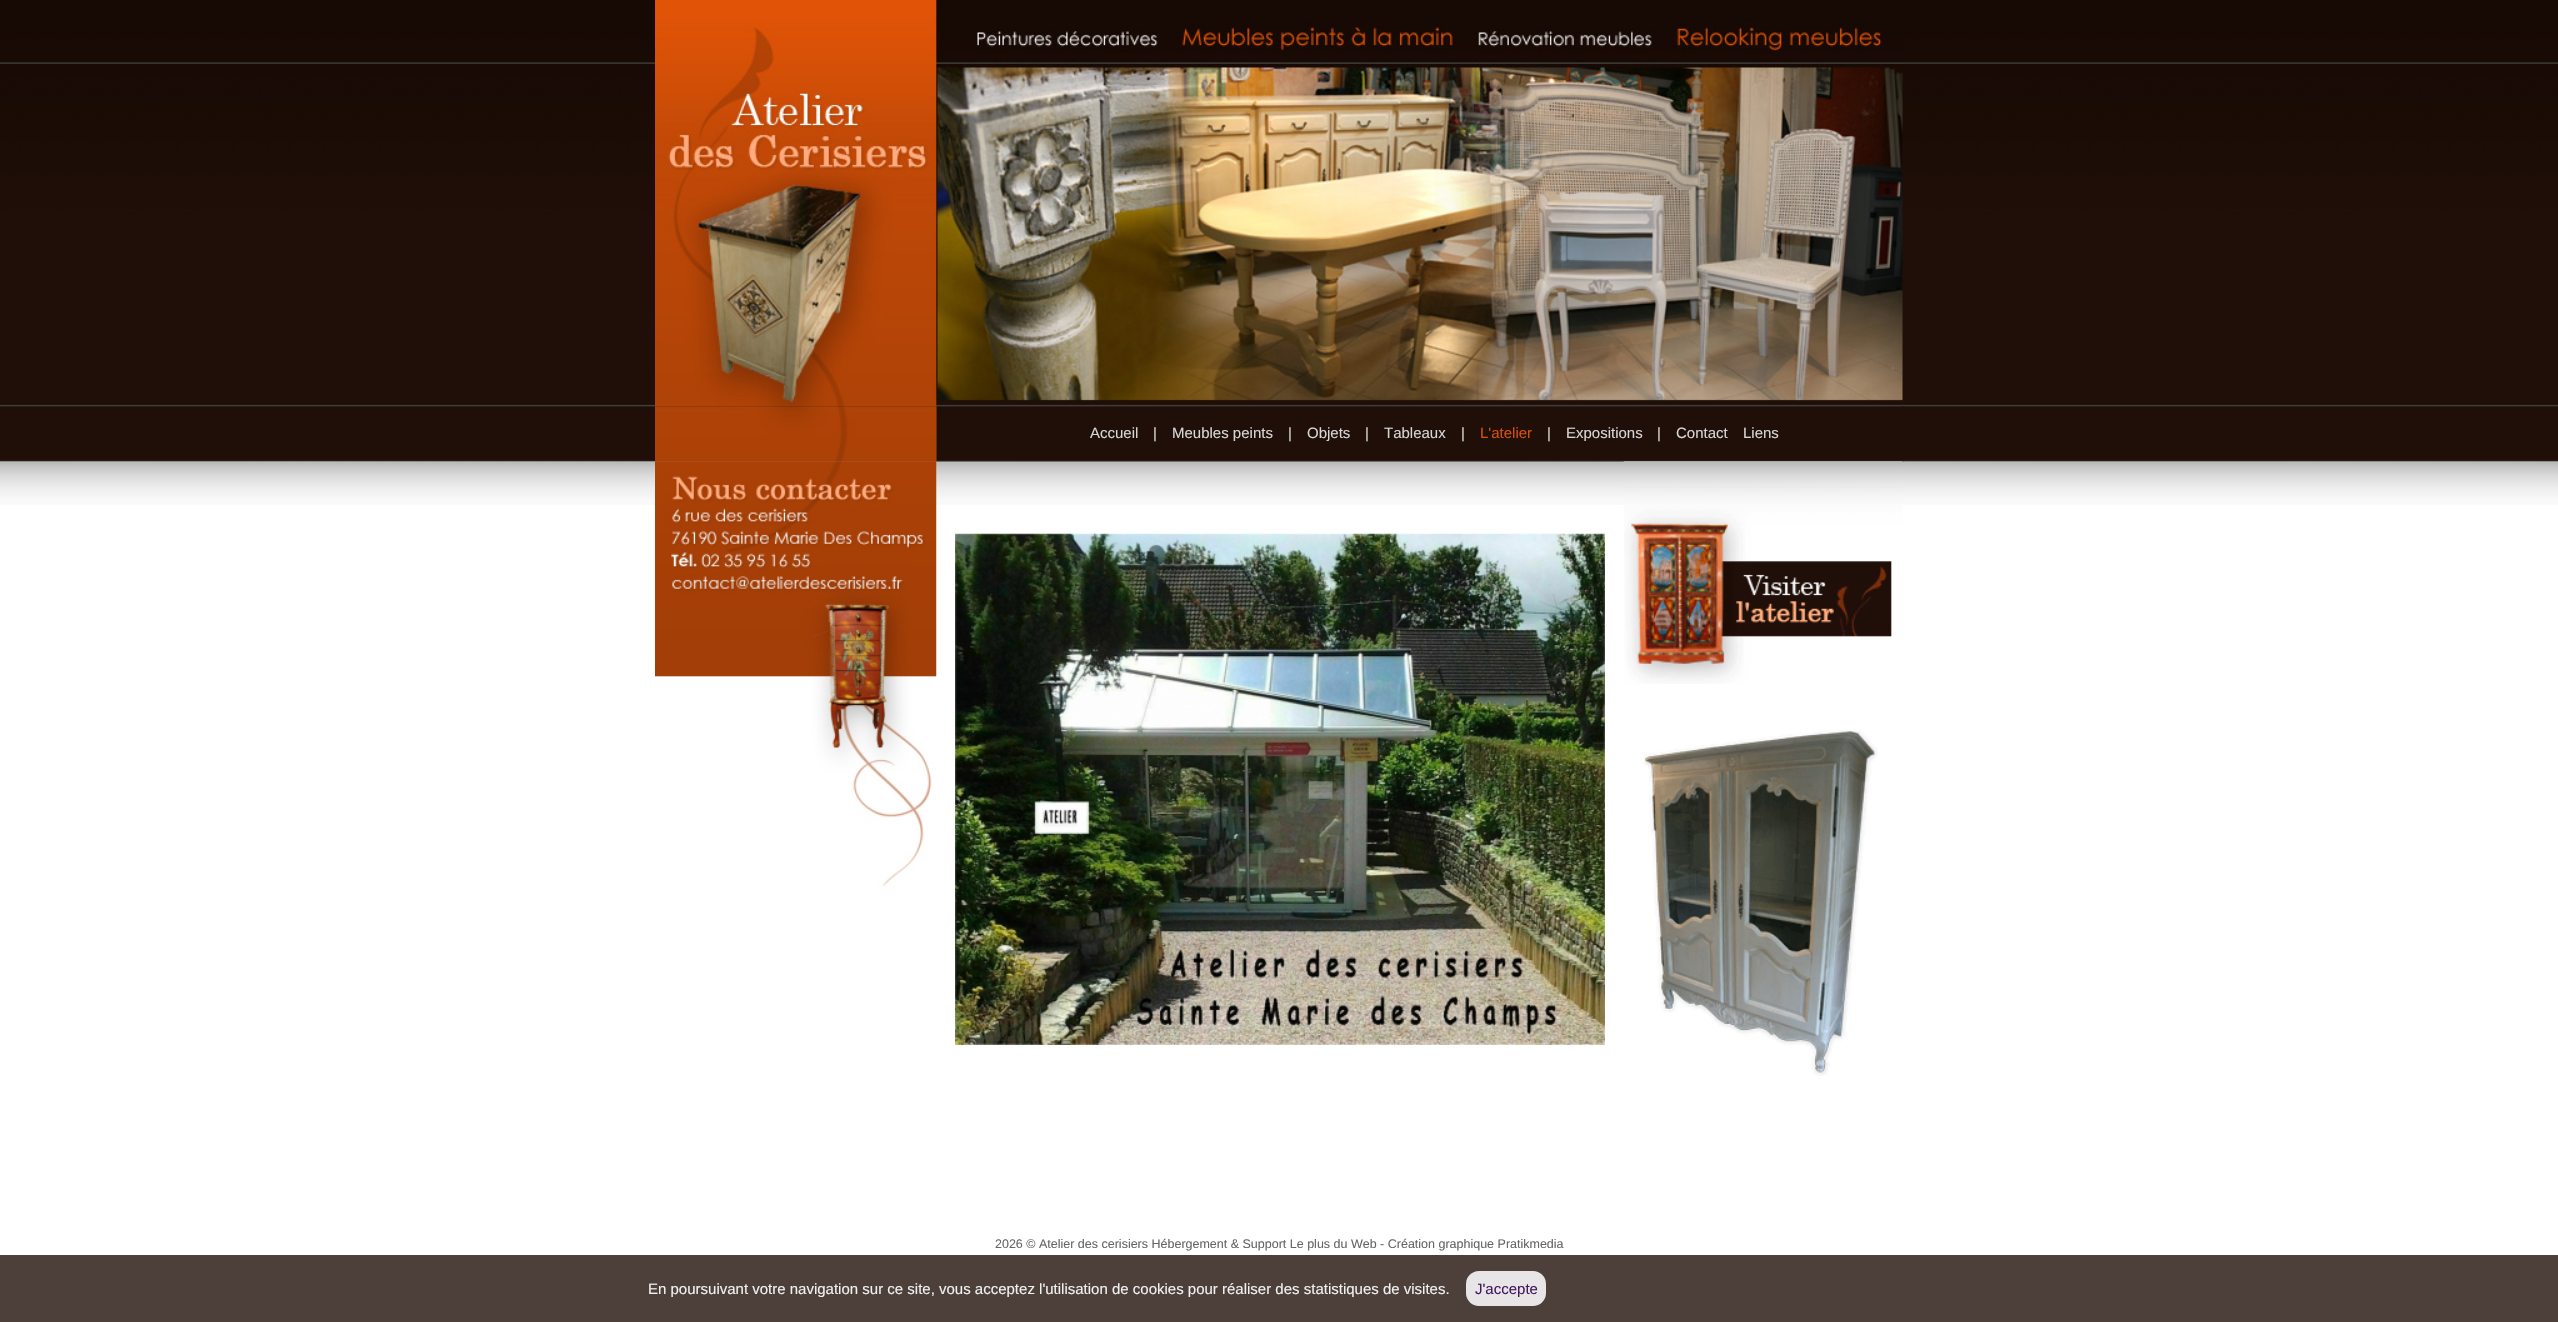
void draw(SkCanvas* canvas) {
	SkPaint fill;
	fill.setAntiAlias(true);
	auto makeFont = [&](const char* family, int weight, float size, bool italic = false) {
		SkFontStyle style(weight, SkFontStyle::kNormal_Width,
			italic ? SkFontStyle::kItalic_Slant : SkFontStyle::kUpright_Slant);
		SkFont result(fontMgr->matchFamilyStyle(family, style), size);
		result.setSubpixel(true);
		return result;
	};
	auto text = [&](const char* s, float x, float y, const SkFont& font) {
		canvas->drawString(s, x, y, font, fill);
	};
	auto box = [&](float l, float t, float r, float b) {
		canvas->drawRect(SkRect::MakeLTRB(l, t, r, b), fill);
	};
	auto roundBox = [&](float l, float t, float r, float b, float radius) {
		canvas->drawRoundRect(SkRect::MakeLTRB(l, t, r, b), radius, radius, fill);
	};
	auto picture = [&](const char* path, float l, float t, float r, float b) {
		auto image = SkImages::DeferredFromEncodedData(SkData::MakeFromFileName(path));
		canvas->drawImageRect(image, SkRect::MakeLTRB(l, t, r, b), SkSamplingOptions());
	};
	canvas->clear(0xFFFFFFFF);
	picture("image0.png", 0, 0, 2558, 505);
	picture("image2.png", 655, 406, 1904, 462);
	picture("image1.png", 655, 0, 1903, 407);
	picture("image3.png", 655, 461, 937, 887);
	picture("image4.png", 955, 533, 1605, 1045);
	picture("image5.png", 1623, 461, 1903, 684);
	picture("image6.png", 1643, 729, 1878, 1076);
	fill.setColor(0xFF4D3F3A);
	box(0, 1255, 2558, 1322);
	fill.setColor(0xFFE7E5E6);
	roundBox(1466, 1271, 1546, 1306, 13);
	auto font1 = makeFont("Liberation Sans", 400, 15);
	fill.setColor(0xFFD6D6D6);
	text("Accueil", 1090, 438, font1);
	text("|", 1153, 438, font1);
	text("Meubles peints", 1172, 438, font1);
	text("|", 1288, 438, font1);
	text("Objets", 1307, 438, font1);
	text("|", 1365, 438, font1);
	text("Tableaux", 1384, 438, font1);
	text("|", 1461, 438, font1);
	fill.setColor(0xFFD55007);
	text("L'atelier", 1480, 438, font1);
	fill.setColor(0xFFD6D6D6);
	text("|", 1547, 438, font1);
	text("Expositions", 1566, 438, font1);
	text("|", 1657, 438, font1);
	text("Contact", 1676, 438, font1);
	text("Liens", 1743, 438, font1);
	auto font2 = makeFont("Liberation Sans", 400, 12.5f);
	fill.setColor(0xFF666666);
	text("2026 © Atelier des cerisiers Hébergement & Support Le plus du Web - Création graphique Pratikmedia", 995, 1248, font2);
	fill.setColor(0xFFF0F0F0);
	text("En poursuivant votre navigation sur ce site, vous acceptez l'utilisation de cookies pour réaliser des statistiques de visites.", 648, 1294, font1);
	fill.setColor(0xFF44185F);
	text("J'accepte", 1475, 1294, font1);
}
